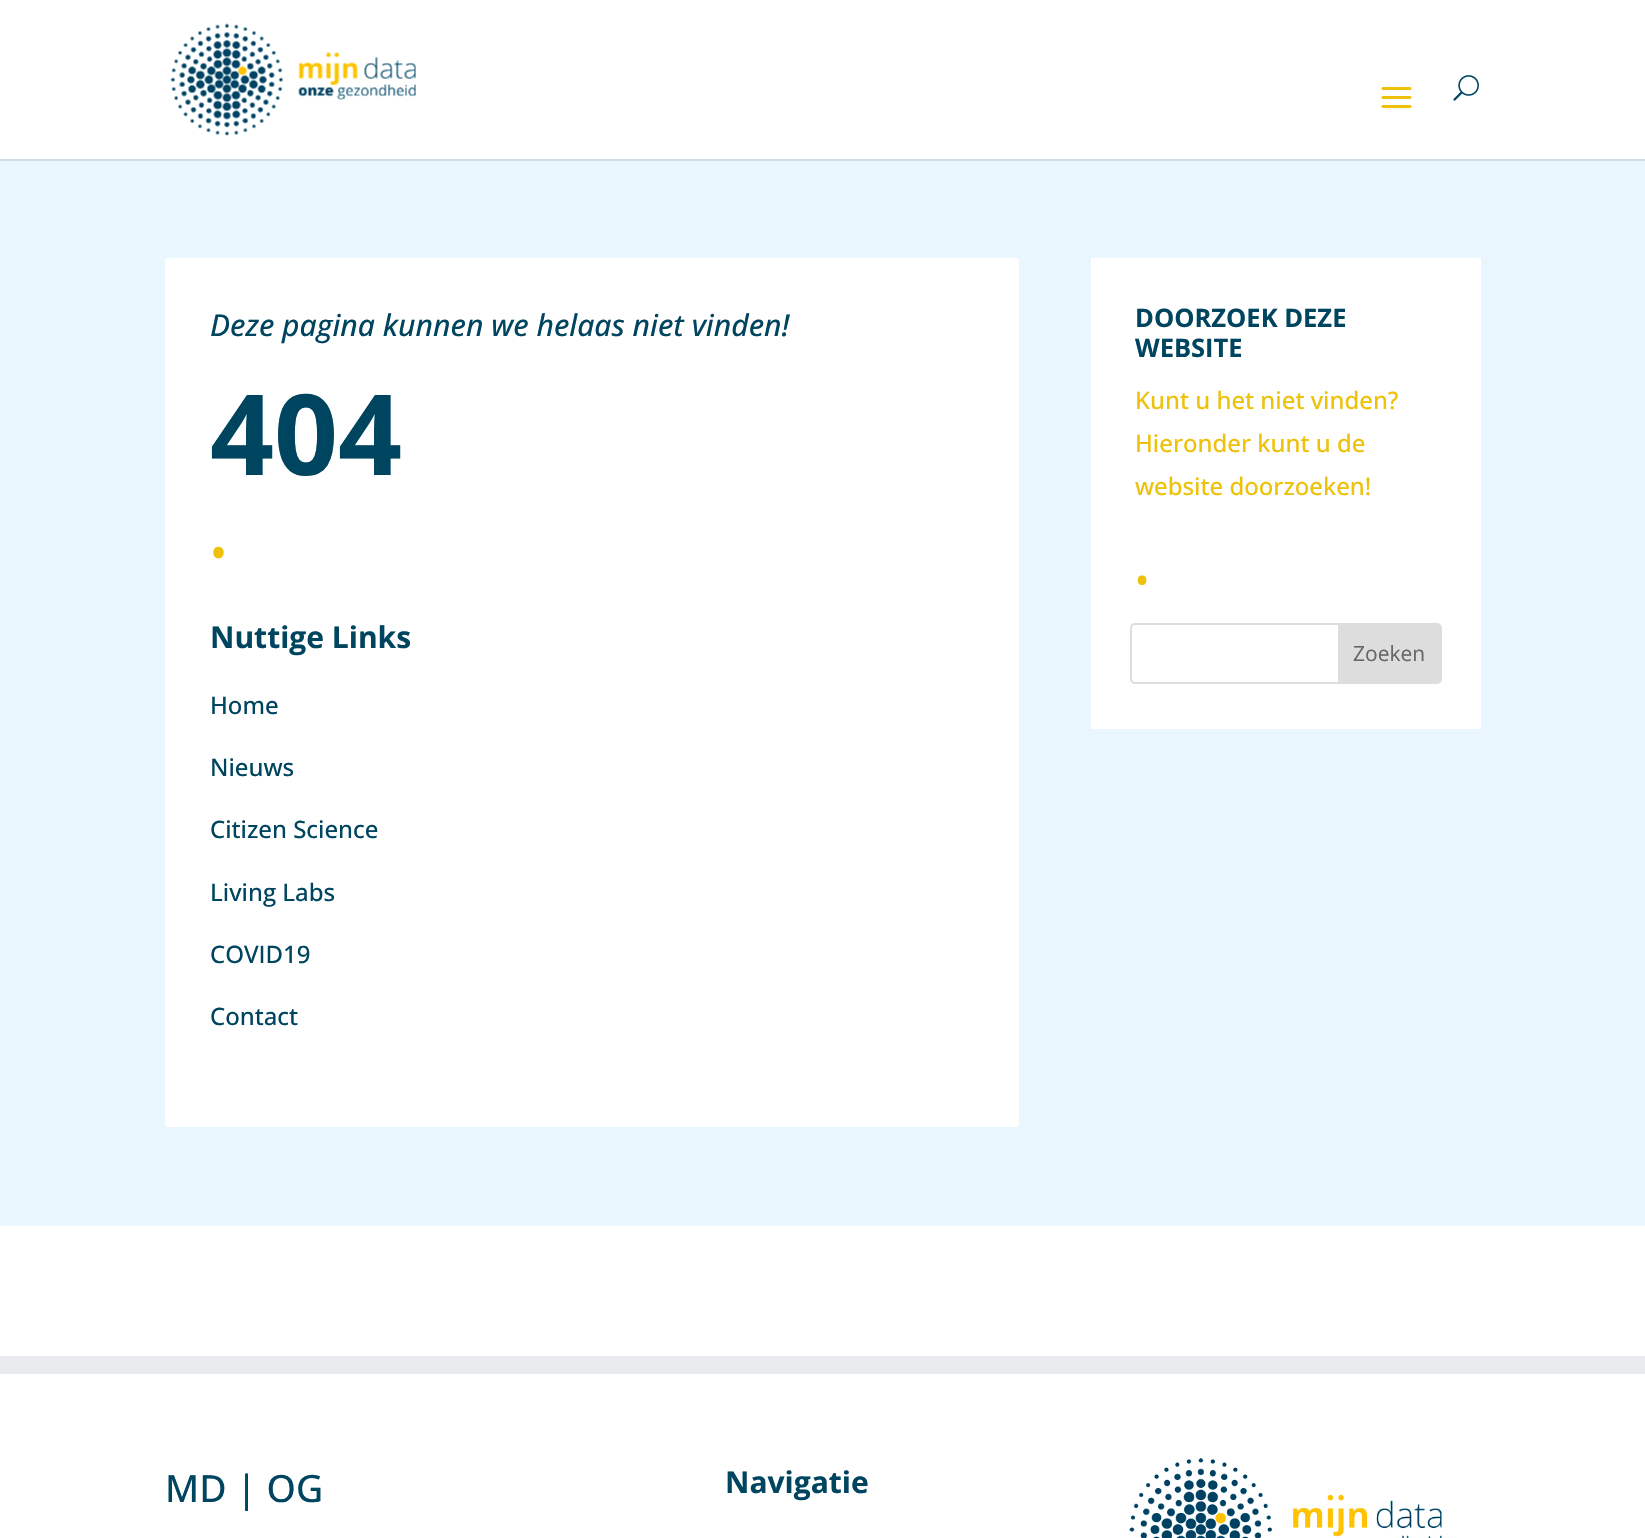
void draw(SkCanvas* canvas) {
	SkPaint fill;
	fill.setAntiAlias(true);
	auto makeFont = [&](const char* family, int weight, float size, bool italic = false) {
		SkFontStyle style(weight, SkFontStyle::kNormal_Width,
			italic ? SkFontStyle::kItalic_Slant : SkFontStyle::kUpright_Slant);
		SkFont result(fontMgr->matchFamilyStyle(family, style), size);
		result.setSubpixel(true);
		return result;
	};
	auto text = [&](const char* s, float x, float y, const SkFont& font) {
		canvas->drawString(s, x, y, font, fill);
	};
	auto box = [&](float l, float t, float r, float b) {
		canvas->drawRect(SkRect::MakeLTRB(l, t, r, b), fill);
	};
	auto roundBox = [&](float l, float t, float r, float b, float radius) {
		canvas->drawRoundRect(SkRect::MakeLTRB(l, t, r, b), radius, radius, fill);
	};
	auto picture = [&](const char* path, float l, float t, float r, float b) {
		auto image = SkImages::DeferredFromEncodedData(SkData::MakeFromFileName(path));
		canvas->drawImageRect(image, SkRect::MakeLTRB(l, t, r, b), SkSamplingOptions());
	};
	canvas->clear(0xFFFFFFFF);
	fill.setColor(0xFFD3DDE5);
	canvas->drawPath(SkPathBuilder().moveTo(0, 159).lineTo(0, 161).lineTo(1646, 161).lineTo(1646, 2).lineTo(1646, 159).close().detach(), fill);
	picture("image0.png", 170, 23, 416, 136);
	picture("image1.png", 1381, 87, 1412, 108);
	picture("image2.png", 1453, 75, 1479, 101);
	fill.setColor(0xFFEAF6FE);
	box(0, 161, 1645, 1226);
	fill.setColor(0xFFFFFFFF);
	roundBox(165, 258, 1019, 1127, 3);
	box(1091, 258, 1481, 729);
	fill.setStyle(SkPaint::kStroke_Style);
	fill.setStrokeWidth(2);
	fill.setColor(0xFFDDDDDD);
	canvas->drawRoundRect(SkRect::MakeLTRB(1131, 624, 1441, 683), 4, 4, fill);
	fill.setStyle(SkPaint::kFill_Style);
	canvas->drawPath(SkPathBuilder().moveTo(1338, 624).lineTo(1437, 624).cubicTo(1438.5f, 624, 1440, 625.5f, 1440, 627).lineTo(1440, 680).cubicTo(1440, 681.5f, 1438.5f, 683, 1437, 683).lineTo(1338, 683).close().detach(), fill);
	fill.setColor(0xFFE9EAEE);
	box(0, 1356, 1645, 1374);
	picture("image3.png", 1129, 1458, 1442, 1538);
	auto font1 = makeFont("Open Sans", 500, 30, true);
	fill.setColor(0xFF004560);
	text("Deze pagina kunnen we helaas niet vinden!", 210, 336, font1);
	auto font2 = makeFont("Open Sans", 700, 112);
	text("404", 210, 475, font2);
	auto font3 = makeFont("Open Sans", 500, 45);
	fill.setColor(0xFFEEC10B);
	text("•", 210, 569, font3);
	auto font4 = makeFont("Open Sans", 700, 30);
	fill.setColor(0xFF004560);
	text("Nuttige Links", 210, 648, font4);
	auto font5 = makeFont("Open Sans", 500, 24);
	text("Home", 210, 714, font5);
	text("Nieuws", 210, 776, font5);
	text("Citizen Science", 210, 838, font5);
	text("Living Labs", 210, 901, font5);
	text("COVID19", 210, 963, font5);
	text("Contact", 210, 1025, font5);
	auto font6 = makeFont("Open Sans", 700, 25.5f);
	text("DOORZOEK DEZE", 1135, 327, font6);
	text("WEBSITE", 1135, 357, font6);
	fill.setColor(0xFFEEC10B);
	text("Kunt u het niet vinden?", 1135, 409, font5);
	text("Hieronder kunt u de", 1135, 452, font5);
	text("website doorzoeken!", 1135, 495, font5);
	auto font7 = makeFont("Open Sans", 500, 37.5f);
	text("•", 1135, 594, font7);
	auto font8 = makeFont("Open Sans", 400, 21);
	fill.setColor(0xFF666666);
	text("Zoeken", 1353, 661, font8);
	fill.setColor(0xFF004560);
	text("MD | OG", 165, 1502, font7);
	text("Navigatie", 725, 1493, font4);
}
